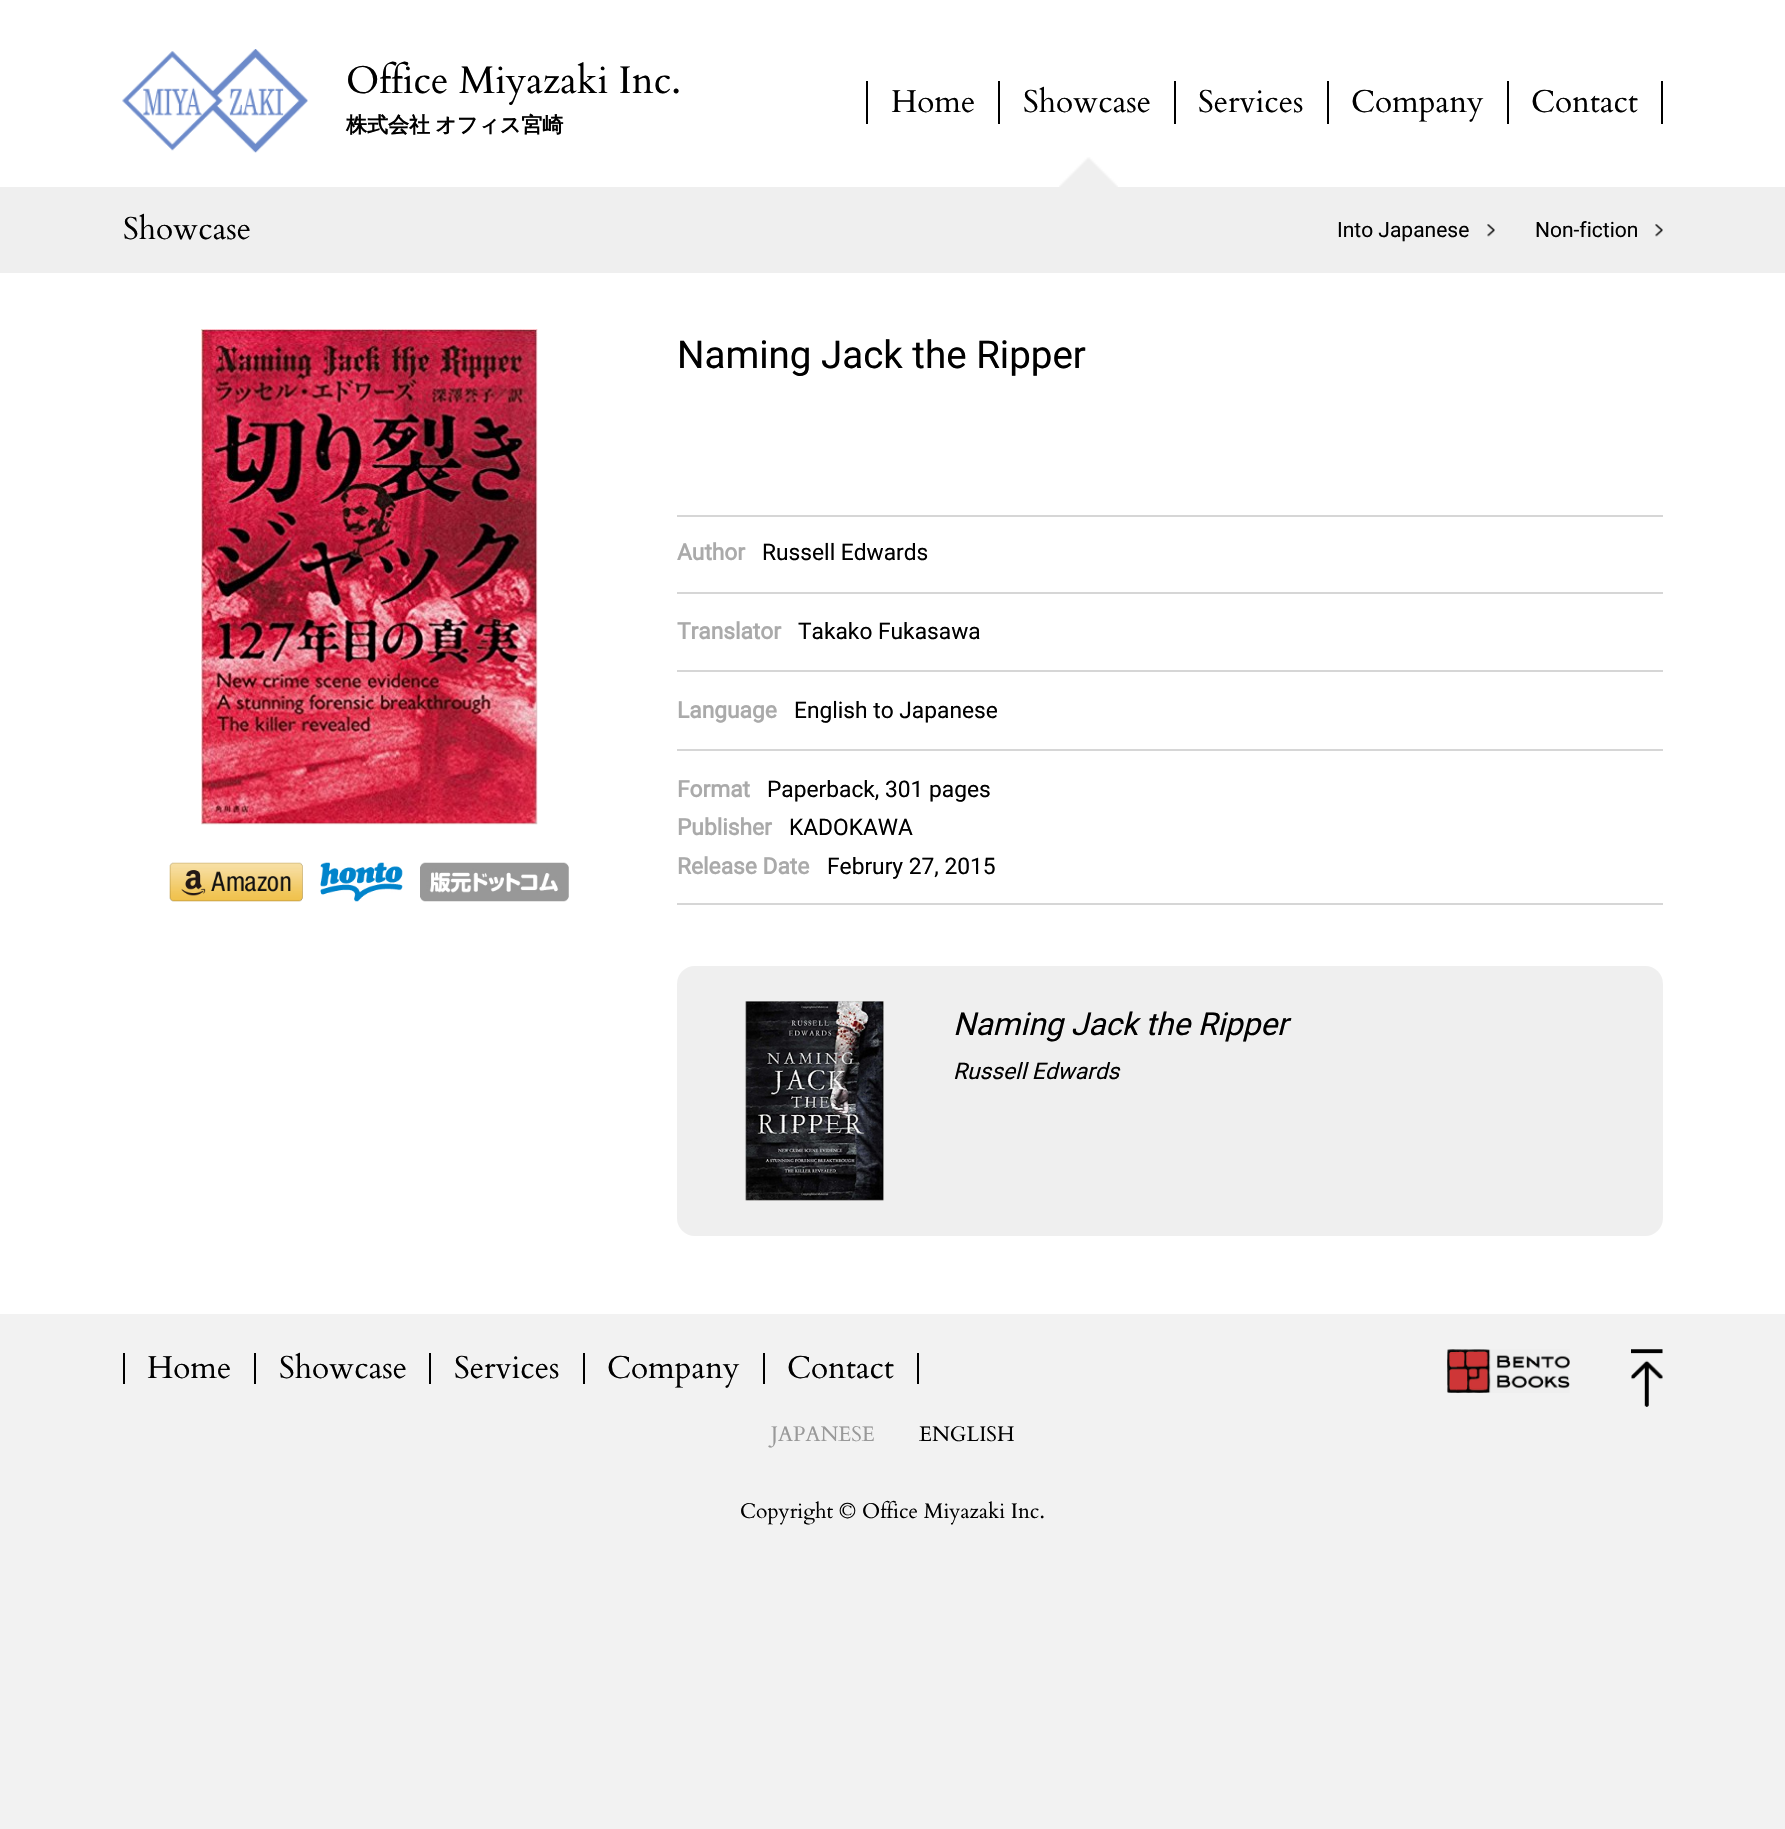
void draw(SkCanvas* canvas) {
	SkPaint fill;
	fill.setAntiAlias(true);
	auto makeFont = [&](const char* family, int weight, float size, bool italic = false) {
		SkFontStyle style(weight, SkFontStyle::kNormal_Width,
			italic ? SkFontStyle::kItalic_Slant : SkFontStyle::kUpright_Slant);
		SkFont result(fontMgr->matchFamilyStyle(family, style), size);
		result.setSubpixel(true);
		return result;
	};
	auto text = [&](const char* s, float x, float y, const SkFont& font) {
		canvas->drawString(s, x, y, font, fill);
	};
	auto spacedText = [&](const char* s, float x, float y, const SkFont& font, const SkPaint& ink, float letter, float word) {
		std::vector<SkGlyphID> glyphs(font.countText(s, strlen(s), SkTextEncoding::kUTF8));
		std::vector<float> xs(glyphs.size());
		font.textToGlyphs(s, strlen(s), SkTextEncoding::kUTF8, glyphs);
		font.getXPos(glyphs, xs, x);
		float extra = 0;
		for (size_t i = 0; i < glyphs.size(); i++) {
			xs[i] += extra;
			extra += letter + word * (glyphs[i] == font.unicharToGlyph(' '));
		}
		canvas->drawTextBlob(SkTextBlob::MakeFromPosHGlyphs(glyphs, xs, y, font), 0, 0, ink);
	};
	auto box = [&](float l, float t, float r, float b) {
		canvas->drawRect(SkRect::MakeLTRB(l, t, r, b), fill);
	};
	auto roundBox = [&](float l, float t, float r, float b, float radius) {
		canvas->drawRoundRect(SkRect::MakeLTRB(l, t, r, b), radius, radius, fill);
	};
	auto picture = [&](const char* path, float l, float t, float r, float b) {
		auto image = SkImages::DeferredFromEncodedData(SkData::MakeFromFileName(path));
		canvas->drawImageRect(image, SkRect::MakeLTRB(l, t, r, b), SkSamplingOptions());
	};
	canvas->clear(0xFFF2F2F2);
	fill.setColor(0xFFFFFFFF);
	box(0, 0, 1785, 1314);
	picture("image0.png", 122, 49, 308, 153);
	fill.setColor(0xFF000000);
	box(998, 81, 1000, 124);
	box(866, 81, 868, 124);
	picture("image1.png", 1059, 157, 1118, 187);
	box(1174, 81, 1176, 124);
	box(1327, 81, 1329, 124);
	box(1507, 81, 1509, 124);
	box(1661, 81, 1663, 124);
	fill.setColor(0xFFEFEFEF);
	box(0, 187, 1785, 273);
	picture("image2.png", 1487, 224, 1495, 237);
	picture("image2.png", 1655, 224, 1663, 237);
	picture("image3.png", 201, 329, 538, 825);
	picture("image4.png", 169, 862, 303, 902);
	picture("image5.png", 320, 862, 403, 902);
	picture("image6.png", 420, 862, 569, 902);
	fill.setColor(0xFFD6D6D6);
	box(677, 515, 1663, 517);
	box(677, 903, 1663, 905);
	box(677, 592, 1663, 594);
	box(677, 670, 1663, 672);
	box(677, 749, 1663, 751);
	fill.setColor(0xFFEFEFEF);
	roundBox(677, 966, 1663, 1236, 18);
	picture("image7.png", 745, 1001, 884, 1201);
	fill.setColor(0xFF000000);
	box(254, 1353, 256, 1384);
	box(123, 1353, 125, 1384);
	box(429, 1353, 431, 1384);
	box(583, 1353, 585, 1384);
	box(763, 1353, 765, 1384);
	box(917, 1353, 919, 1384);
	picture("image8.png", 1447, 1349, 1570, 1393);
	picture("image9.png", 1631, 1349, 1663, 1407);
	auto font1 = makeFont("Cardo", 400, 38.5f);
	text("Office Miyazaki Inc.", 346, 93, font1);
	auto font2 = makeFont("WenQuanYi Zen Hei", 700, 21);
	spacedText("株式会社 オフィス宮崎", 346, 132, font2, fill, 0, -1);
	auto font3 = makeFont("Cardo", 400, 31.5f);
	text("Home", 891, 112, font3);
	text("Showcase", 1023, 112, font3);
	text("Services", 1198, 112, font3);
	text("Company", 1351, 112, font3);
	text("Contact", 1531, 112, font3);
	text("Showcase", 123, 239, font3);
	auto font4 = makeFont("Roboto", 400, 21);
	text("Into Japanese", 1337, 237, font4);
	text("Non-fiction", 1535, 237, font4);
	auto font5 = makeFont("Roboto", 400, 38.5f);
	text("Naming Jack the Ripper", 677, 368, font5);
	auto font6 = makeFont("Roboto", 700, 22.75f);
	fill.setColor(0xFFAAAAAA);
	text("Author", 677, 560, font6);
	auto font7 = makeFont("Roboto", 400, 22.75f);
	fill.setColor(0xFF000000);
	text("Russell Edwards", 762, 560, font7);
	fill.setColor(0xFFAAAAAA);
	text("Translator", 677, 639, font6);
	fill.setColor(0xFF000000);
	text("Takako Fukasawa", 798, 639, font7);
	fill.setColor(0xFFAAAAAA);
	text("Language", 677, 718, font6);
	fill.setColor(0xFF000000);
	text("English to Japanese", 794, 718, font7);
	fill.setColor(0xFFAAAAAA);
	text("Format", 677, 797, font6);
	fill.setColor(0xFF000000);
	text("Paperback, 301 pages", 767, 797, font7);
	fill.setColor(0xFFAAAAAA);
	text("Publisher", 677, 835, font6);
	fill.setColor(0xFF000000);
	text("KADOKAWA", 789, 835, font7);
	fill.setColor(0xFFAAAAAA);
	text("Release Date", 677, 874, font6);
	fill.setColor(0xFF000000);
	text("Februry 27, 2015", 827, 874, font7);
	auto font8 = makeFont("Roboto", 400, 31.5f, true);
	text("Naming Jack the Ripper", 953, 1035, font8);
	auto font9 = makeFont("Roboto", 400, 22.75f, true);
	text("Russell Edwards", 953, 1079, font9);
	text("Home", 147, 1378, font3);
	text("Showcase", 279, 1378, font3);
	text("Services", 454, 1378, font3);
	text("Company", 607, 1378, font3);
	text("Contact", 787, 1378, font3);
	auto font10 = makeFont("Cardo", 400, 21);
	fill.setColor(0xFF999999);
	text("JAPANESE", 771, 1441, font10);
	fill.setColor(0xFF000000);
	text("ENGLISH", 919, 1441, font10);
	text("Copyright © Office Miyazaki Inc.", 740, 1518, font10);
}
